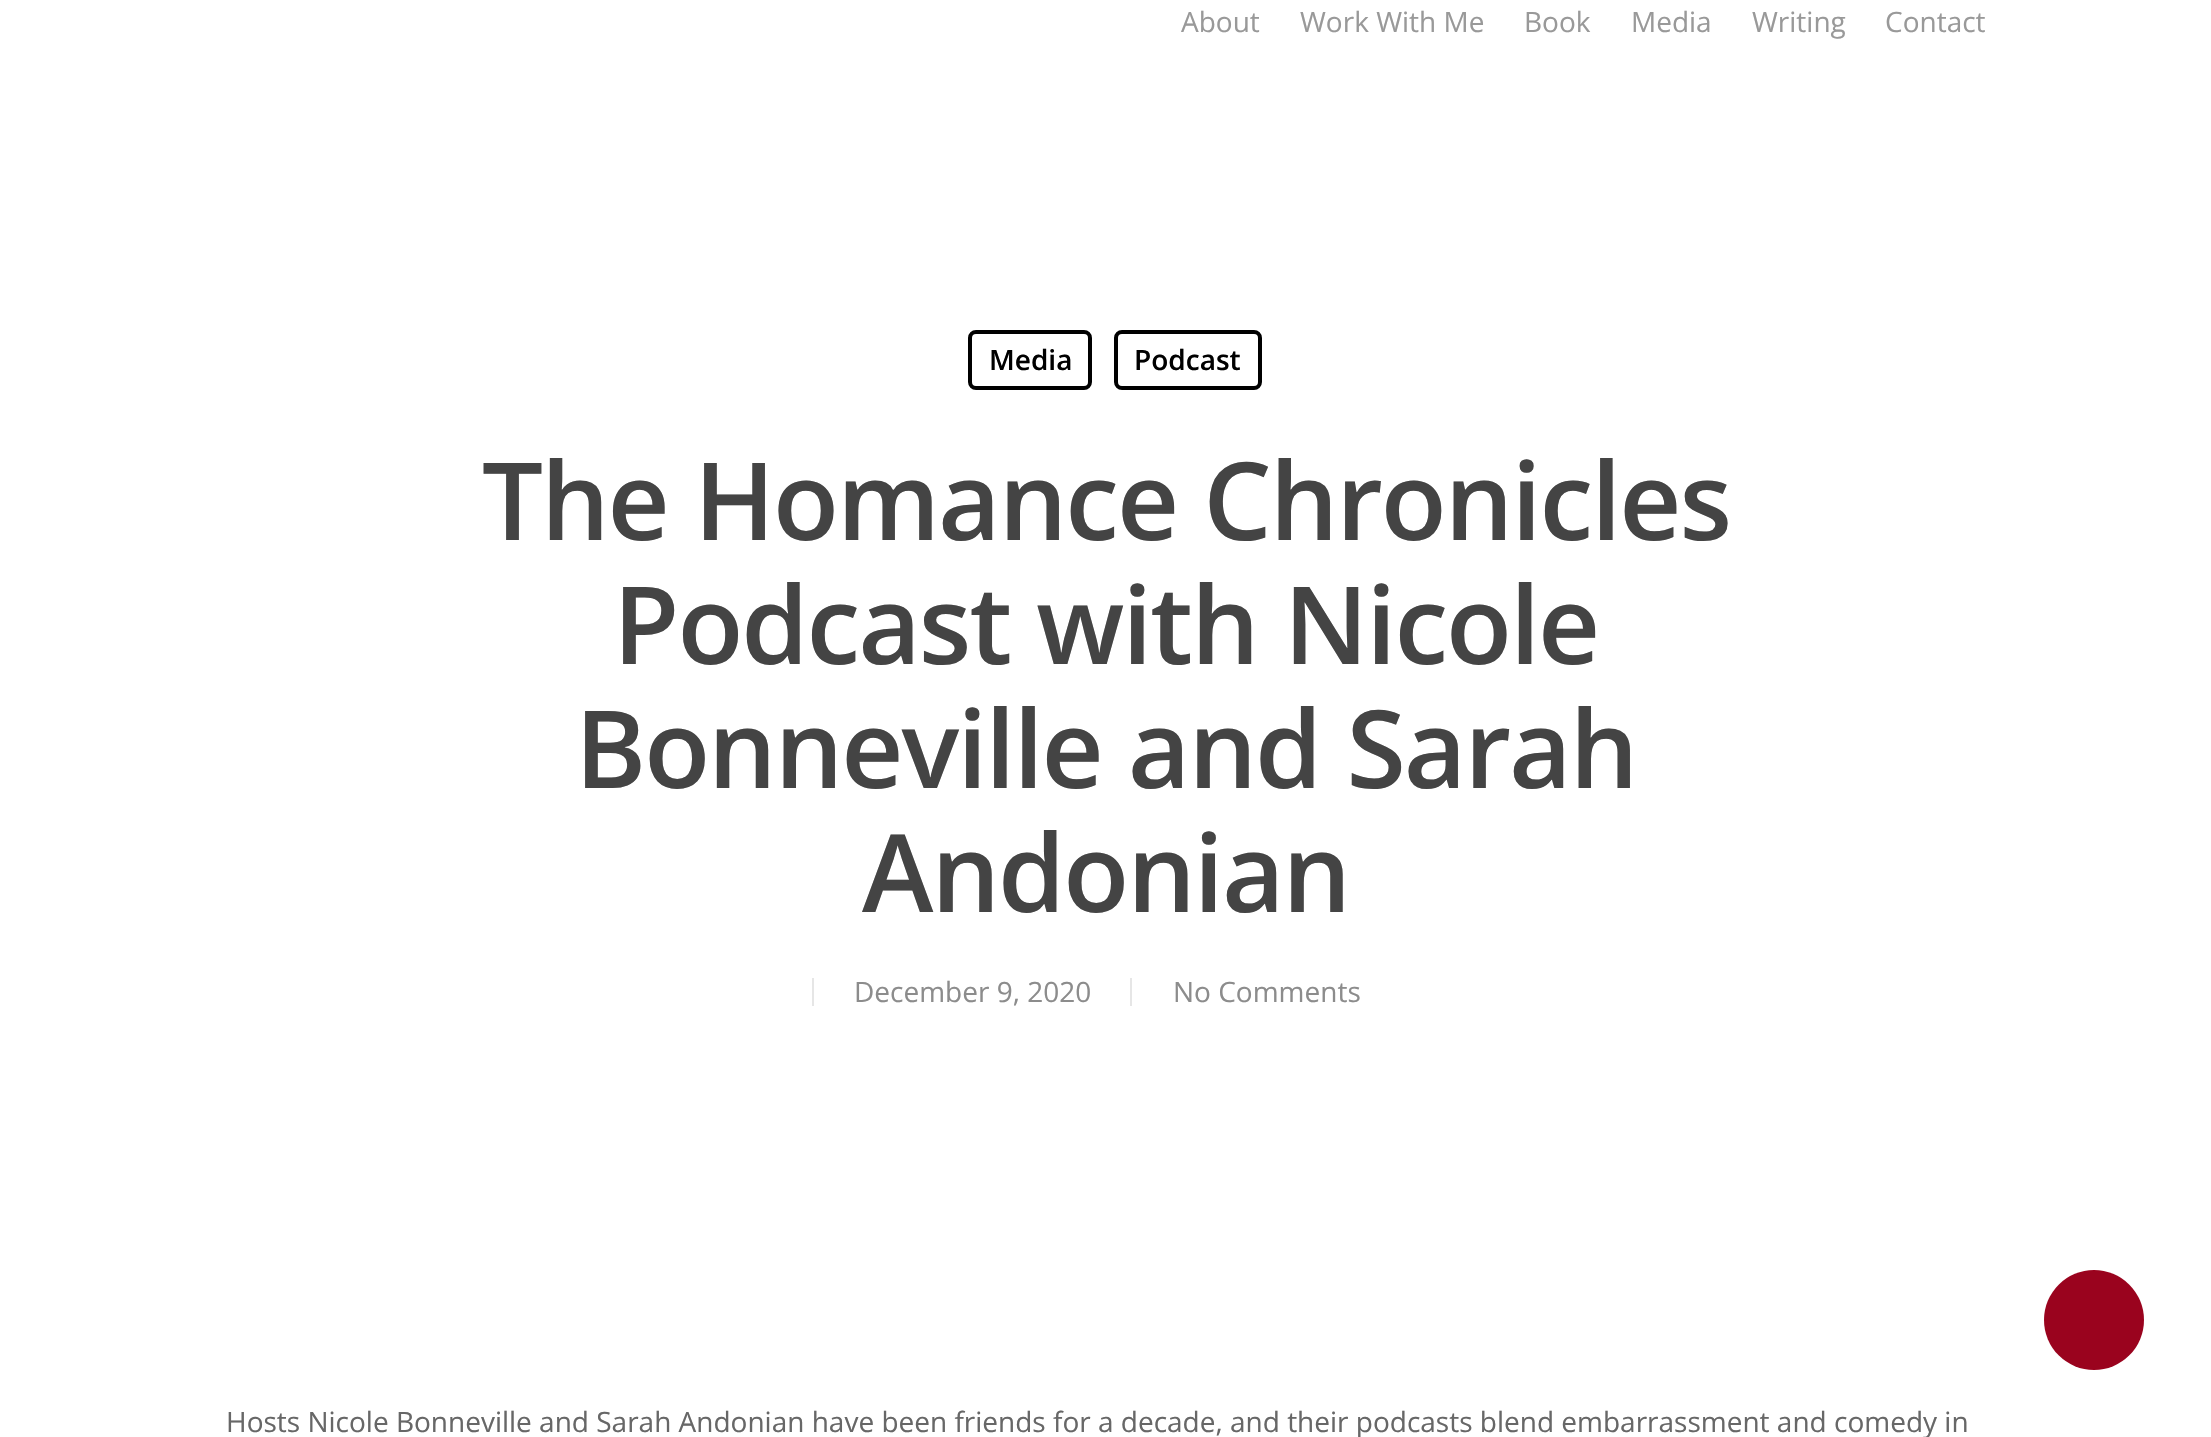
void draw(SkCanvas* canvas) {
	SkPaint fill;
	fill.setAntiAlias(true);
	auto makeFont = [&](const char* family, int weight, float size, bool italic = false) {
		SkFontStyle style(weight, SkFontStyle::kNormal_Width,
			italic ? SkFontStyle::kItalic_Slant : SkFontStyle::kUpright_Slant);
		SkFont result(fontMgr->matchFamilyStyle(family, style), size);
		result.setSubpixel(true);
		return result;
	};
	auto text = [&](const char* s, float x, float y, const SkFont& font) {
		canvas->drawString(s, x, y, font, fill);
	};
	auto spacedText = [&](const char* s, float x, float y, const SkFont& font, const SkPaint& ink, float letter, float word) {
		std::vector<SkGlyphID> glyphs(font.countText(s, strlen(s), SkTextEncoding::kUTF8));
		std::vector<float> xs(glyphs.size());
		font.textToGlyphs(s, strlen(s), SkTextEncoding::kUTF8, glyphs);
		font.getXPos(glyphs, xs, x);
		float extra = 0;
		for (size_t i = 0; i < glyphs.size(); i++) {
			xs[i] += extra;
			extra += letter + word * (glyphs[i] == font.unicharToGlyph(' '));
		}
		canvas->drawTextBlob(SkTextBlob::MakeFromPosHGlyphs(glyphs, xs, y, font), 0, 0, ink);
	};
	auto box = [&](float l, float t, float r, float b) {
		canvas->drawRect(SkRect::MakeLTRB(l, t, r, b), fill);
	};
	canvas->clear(0xFFFFFFFF);
	fill.setStyle(SkPaint::kStroke_Style);
	fill.setStrokeWidth(4);
	fill.setColor(0xFF000000);
	canvas->drawRoundRect(SkRect::MakeLTRB(970, 332, 1090, 388), 6, 6, fill);
	canvas->drawRoundRect(SkRect::MakeLTRB(1116, 332, 1260, 388), 6, 6, fill);
	fill.setStyle(SkPaint::kFill_Style);
	fill.setColor(0xFFE6E6E6);
	box(812, 978, 814, 1006);
	box(1130, 978, 1132, 1006);
	fill.setColor(0xFF9A031E);
	canvas->drawCircle(2094, 1320, 50, fill);
	auto font1 = makeFont("Open Sans", 400, 28);
	fill.setColor(0xFF999999);
	text("About", 1181, 32, font1);
	text("Work With Me", 1300, 32, font1);
	text("Book", 1524, 32, font1);
	text("Media", 1631, 32, font1);
	text("Writing", 1752, 32, font1);
	text("Contact", 1885, 32, font1);
	auto font2 = makeFont("Open Sans", 600, 28);
	fill.setColor(0xFF000000);
	text("Media", 989, 370, font2);
	text("Podcast", 1134, 370, font2);
	auto font3 = makeFont("Open Sans", 600, 108);
	fill.setColor(0xFF444444);
	spacedText("The Homance Chronicles", 482, 540, font3, fill, -2, 0);
	spacedText("Podcast with Nicole", 613, 664, font3, fill, -2, 0);
	spacedText("Bonneville and Sarah", 575, 788, font3, fill, -2, 0);
	spacedText("Andonian", 862, 912, font3, fill, -2, 0);
	fill.setColor(0xFF8C8C8C);
	text("December 9, 2020", 854, 1002, font1);
	text("No Comments", 1173, 1002, font1);
	fill.setColor(0xFF676767);
	text("Hosts Nicole Bonneville and Sarah Andonian have been friends for a decade, and their podcasts blend embarrassment and comedy in", 226, 1432, font1);
}
